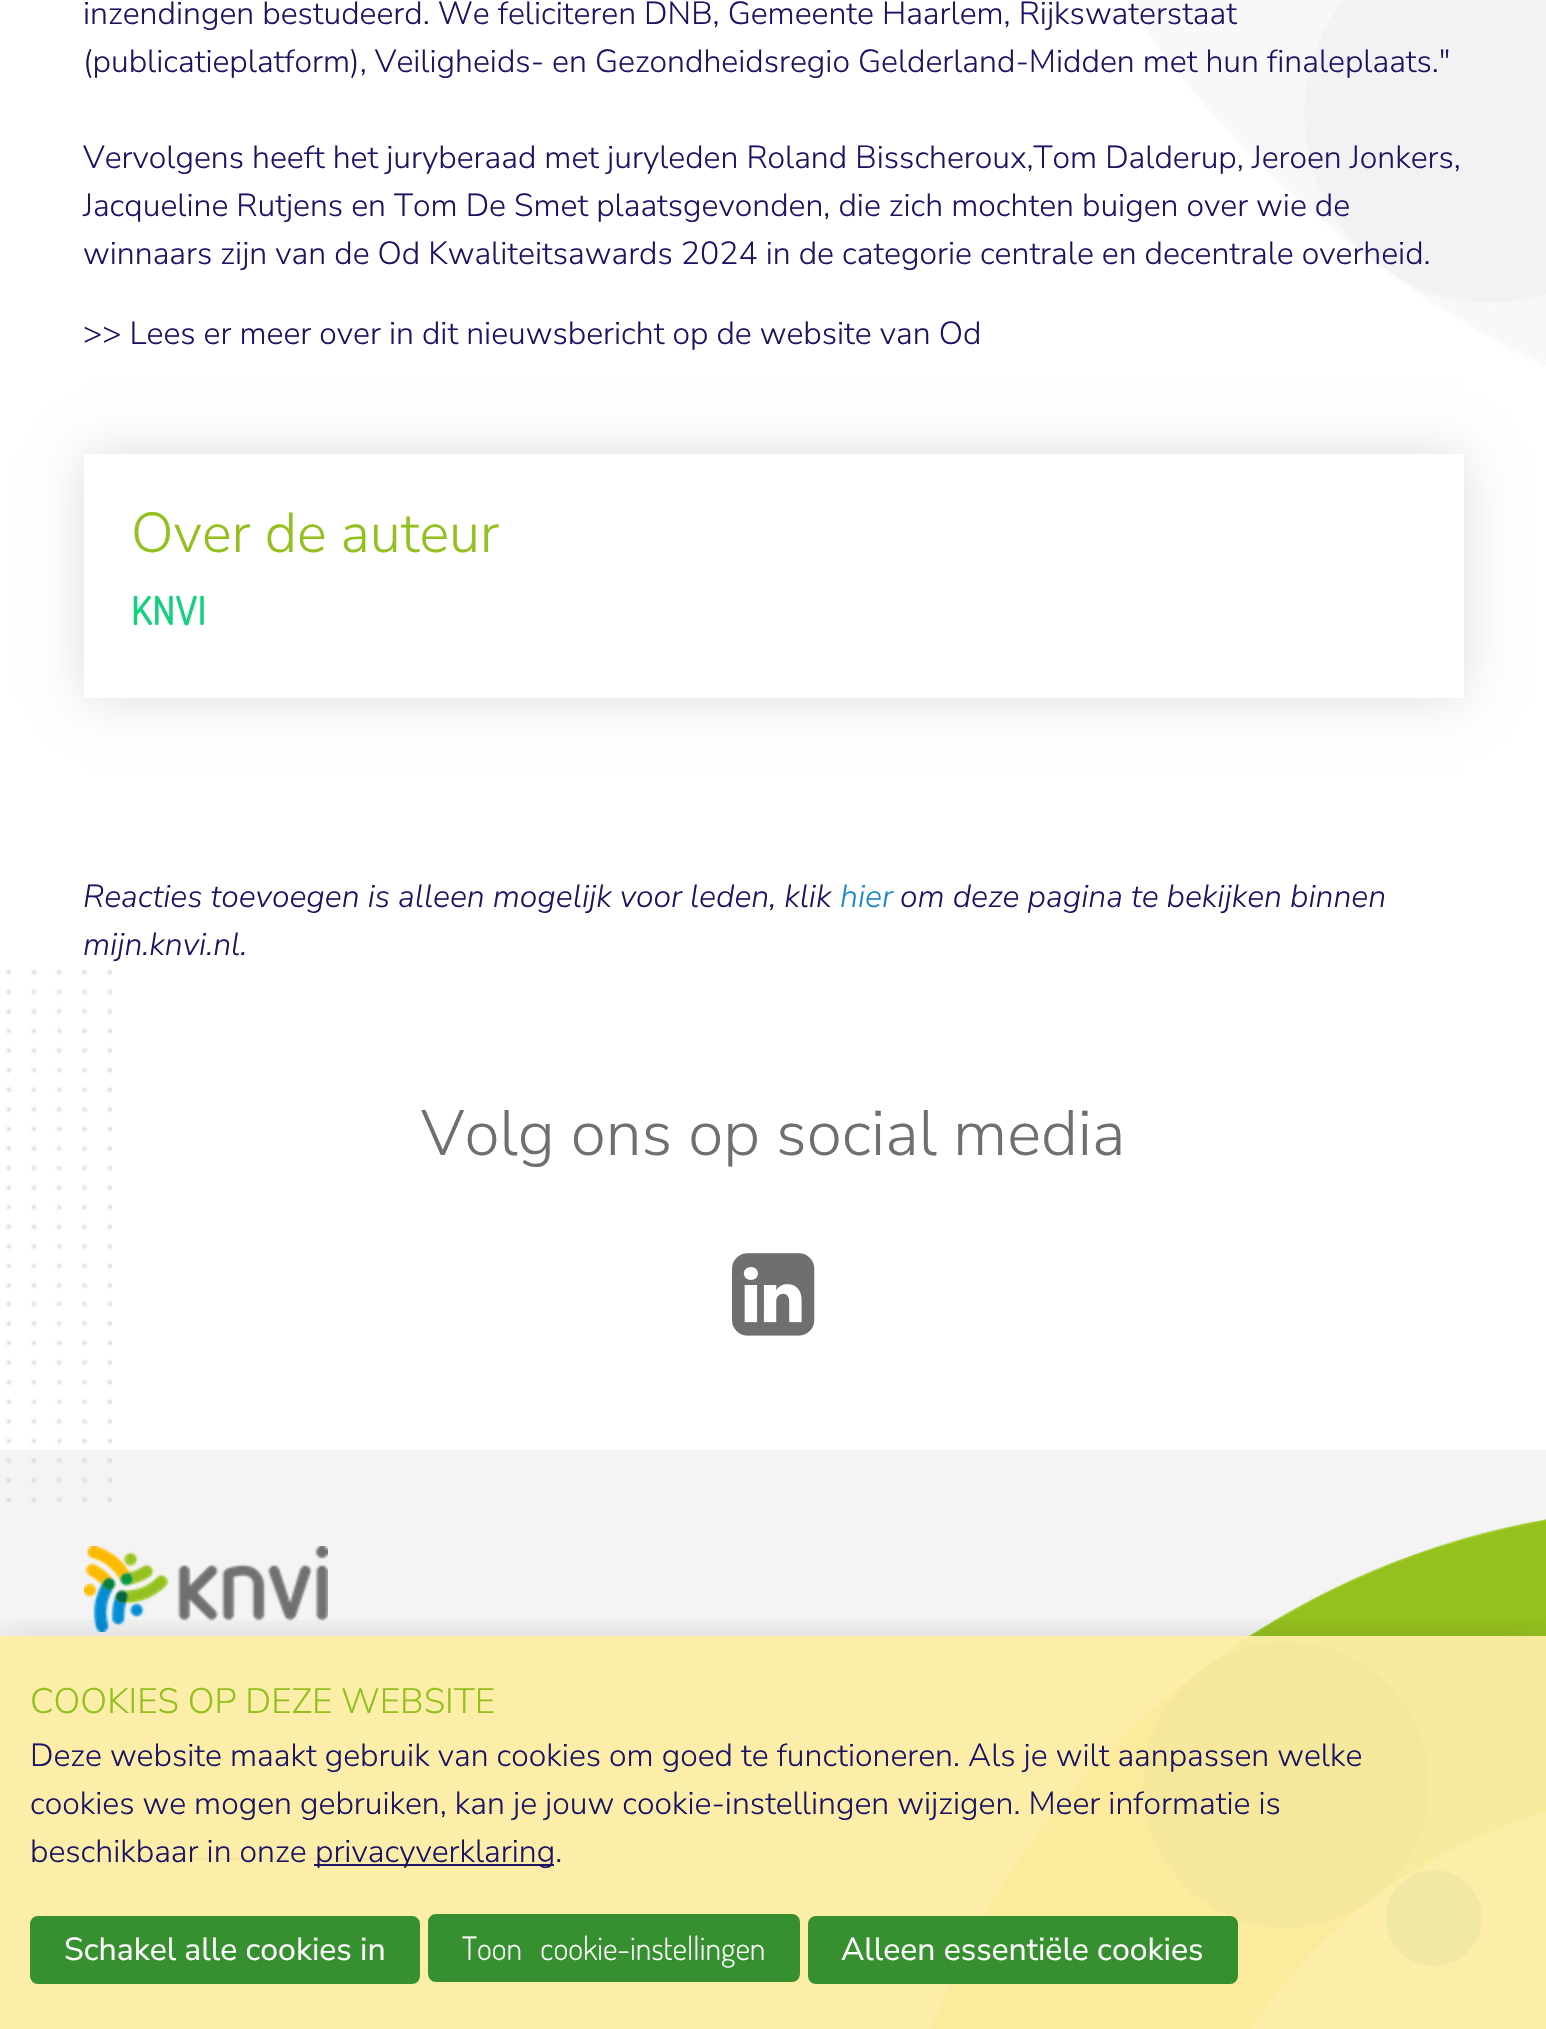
void draw(SkCanvas* canvas) {
	SkPaint fill;
	fill.setAntiAlias(true);
	auto makeFont = [&](const char* family, int weight, float size, bool italic = false) {
		SkFontStyle style(weight, SkFontStyle::kNormal_Width,
			italic ? SkFontStyle::kItalic_Slant : SkFontStyle::kUpright_Slant);
		SkFont result(fontMgr->matchFamilyStyle(family, style), size);
		result.setSubpixel(true);
		return result;
	};
	auto text = [&](const char* s, float x, float y, const SkFont& font) {
		canvas->drawString(s, x, y, font, fill);
	};
	auto spacedText = [&](const char* s, float x, float y, const SkFont& font, const SkPaint& ink, float letter, float word) {
		std::vector<SkGlyphID> glyphs(font.countText(s, strlen(s), SkTextEncoding::kUTF8));
		std::vector<float> xs(glyphs.size());
		font.textToGlyphs(s, strlen(s), SkTextEncoding::kUTF8, glyphs);
		font.getXPos(glyphs, xs, x);
		float extra = 0;
		for (size_t i = 0; i < glyphs.size(); i++) {
			xs[i] += extra;
			extra += letter + word * (glyphs[i] == font.unicharToGlyph(' '));
		}
		canvas->drawTextBlob(SkTextBlob::MakeFromPosHGlyphs(glyphs, xs, y, font), 0, 0, ink);
	};
	auto box = [&](float l, float t, float r, float b) {
		canvas->drawRect(SkRect::MakeLTRB(l, t, r, b), fill);
	};
	auto picture = [&](const char* path, float l, float t, float r, float b) {
		auto image = SkImages::DeferredFromEncodedData(SkData::MakeFromFileName(path));
		canvas->drawImageRect(image, SkRect::MakeLTRB(l, t, r, b), SkSamplingOptions());
	};
	canvas->clear(0xFFF4F4F4);
	fill.setColor(0xFFFFFFFF);
	box(0, 0, 1546, 1450);
	picture("image0.png", 1126, 0, 1546, 366);
	canvas->save();
	canvas->clipPath(SkPathBuilder(SkPathFillType::kEvenOdd).moveTo(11, 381).lineTo(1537, 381).lineTo(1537, 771).lineTo(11, 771).close().moveTo(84, 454).lineTo(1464, 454).lineTo(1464, 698).lineTo(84, 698).close().detach(), true);
	fill.setColor(0x21000000);
	fill.setMaskFilter(SkMaskFilter::MakeBlur(kNormal_SkBlurStyle, 24));
	canvas->drawRect(SkRect::MakeLTRB(84, 454, 1464, 698), fill);
	fill.setMaskFilter(nullptr);
	canvas->restore();
	picture("image1.png", 732, 1253, 815, 1336);
	picture("image2.png", 5, 970, 112, 1502);
	picture("image3.png", 84, 1546, 328, 1632);
	fill.setColor(0xFF747A34);
	box(192, 1858, 442, 1860);
	picture("image4.png", 930, 1519, 1546, 2029);
	fill.setColor(0xFF1488CA);
	canvas->drawCircle(1434, 1918, 48, fill);
	canvas->save();
	canvas->clipRect(SkRect::MakeLTRB(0, 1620, 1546, 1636));
	fill.setColor(0x33000000);
	fill.setMaskFilter(SkMaskFilter::MakeBlur(kNormal_SkBlurStyle, 20));
	canvas->drawRect(SkRect::MakeLTRB(0, 1646, 1546, 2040), fill);
	fill.setMaskFilter(nullptr);
	canvas->restore();
	fill.setColor(0xF2FCEDA3);
	box(0, 1636, 1546, 2029);
	fill.setColor(0xFF1B1464);
	box(314, 1864, 554, 1866);
	fill.setColor(0xFF37902F);
	canvas->drawRoundRect(SkRect::MakeLTRB(31, 1917, 419, 1983), 7, 7, fill);
	fill.setStyle(SkPaint::kStroke_Style);
	fill.setStrokeWidth(2);
	canvas->drawRoundRect(SkRect::MakeLTRB(31, 1917, 419, 1983), 7, 7, fill);
	fill.setStyle(SkPaint::kFill_Style);
	canvas->drawRoundRect(SkRect::MakeLTRB(429, 1915, 799, 1981), 7, 7, fill);
	fill.setStyle(SkPaint::kStroke_Style);
	canvas->drawRoundRect(SkRect::MakeLTRB(429, 1915, 799, 1981), 7, 7, fill);
	fill.setStyle(SkPaint::kFill_Style);
	canvas->drawRoundRect(SkRect::MakeLTRB(809, 1917, 1237, 1983), 7, 7, fill);
	fill.setStyle(SkPaint::kStroke_Style);
	canvas->drawRoundRect(SkRect::MakeLTRB(809, 1917, 1237, 1983), 7, 7, fill);
	auto font1 = makeFont("Nunito Sans", 300, 32);
	fill.setStyle(SkPaint::kFill_Style);
	fill.setColor(0xFF1B1464);
	text("inzendingen bestudeerd. We feliciteren DNB, Gemeente Haarlem, Rijkswaterstaat", 83, 24, font1);
	text("(publicatieplatform), Veiligheids- en Gezondheidsregio Gelderland-Midden met hun finaleplaats.\"", 83, 72, font1);
	text("Vervolgens heeft het juryberaad met juryleden Roland Bisscheroux,Tom Dalderup, Jeroen Jonkers,", 83, 168, font1);
	text("Jacqueline Rutjens en Tom De Smet plaatsgevonden, die zich mochten buigen over wie de", 83, 216, font1);
	text("winnaars zijn van de Od Kwaliteitsawards 2024 in de categorie centrale en decentrale overheid.", 83, 264, font1);
	text(">> Lees er meer over in dit nieuwsbericht op de website van Od", 83, 344, font1);
	auto font2 = makeFont("Nunito Sans", 300, 56);
	fill.setColor(0xFF93C01F);
	text("Over de auteur", 131, 552, font2);
	auto font3 = makeFont("Dosis", 500, 40);
	fill.setColor(0xFF14D17F);
	text("KNVI", 131, 625, font3);
	auto font4 = makeFont("Nunito Sans", 300, 32, true);
	fill.setColor(0xFF1B1464);
	text("Reacties toevoegen is alleen mogelijk voor leden, klik", 83, 907, font4);
	fill.setColor(0xFF1488CA);
	text("hier", 840, 907, font4);
	fill.setColor(0xFF1B1464);
	text("om deze pagina te bekijken binnen", 900, 907, font4);
	text("mijn.knvi.nl.", 83, 955, font4);
	auto font5 = makeFont("Nunito Sans", 300, 64);
	fill.setColor(0xFF6F6F6F);
	text("Volg ons op social media", 421, 1155, font5);
	auto font6 = makeFont("Nunito Sans", 300, 35.25f);
	fill.setColor(0xFF93C01F);
	text("COOKIES OP DEZE WEBSITE", 30, 1713, font6);
	fill.setColor(0xFF1B1464);
	text("Deze website maakt gebruik van cookies om goed te functioneren. Als je wilt aanpassen welke", 30, 1766, font1);
	text("cookies we mogen gebruiken, kan je jouw cookie-instellingen wijzigen. Meer informatie is", 30, 1814, font1);
	text("beschikbaar in onze", 30, 1862, font1);
	text("privacyverklaring.", 315, 1862, font1);
	auto font7 = makeFont("Nunito Sans", 400, 32);
	fill.setColor(0xFFFFFFFF);
	text("Schakel alle cookies in", 64, 1960, font7);
	auto font8 = makeFont("Dosis", 300, 32);
	spacedText("Toon cookie-instellingen", 462, 1960, font8, fill, 0, 12);
	text("Alleen essentiële cookies", 841, 1960, font7);
}
